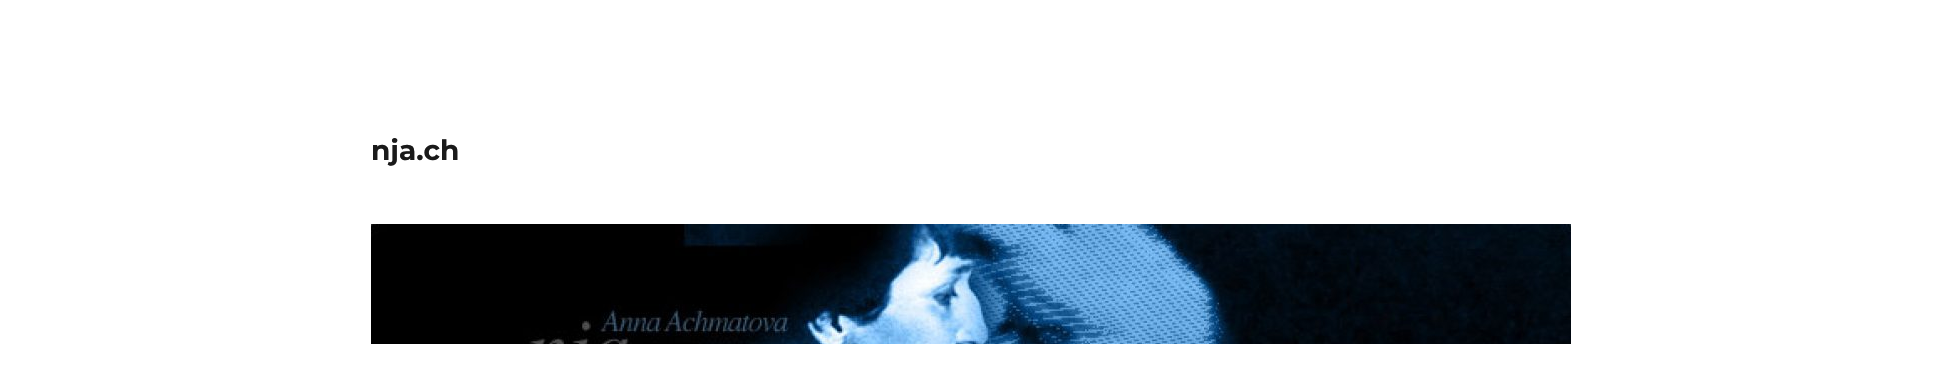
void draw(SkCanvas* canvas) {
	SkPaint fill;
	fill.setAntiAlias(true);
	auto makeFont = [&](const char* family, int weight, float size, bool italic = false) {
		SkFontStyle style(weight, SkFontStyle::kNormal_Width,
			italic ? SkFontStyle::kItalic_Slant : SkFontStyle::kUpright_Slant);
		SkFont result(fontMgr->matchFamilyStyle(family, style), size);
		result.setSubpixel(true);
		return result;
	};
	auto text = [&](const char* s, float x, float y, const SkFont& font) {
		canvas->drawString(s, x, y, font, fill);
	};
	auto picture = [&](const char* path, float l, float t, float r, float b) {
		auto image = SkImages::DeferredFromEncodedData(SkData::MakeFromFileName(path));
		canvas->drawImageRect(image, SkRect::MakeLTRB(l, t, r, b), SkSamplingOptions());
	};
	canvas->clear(0xFFFFFFFF);
	picture("image0.png", 371, 224, 1571, 344);
	auto font1 = makeFont("Montserrat", 700, 28);
	fill.setColor(0xFF1A1A1A);
	text("nja.ch", 371, 160, font1);
}
